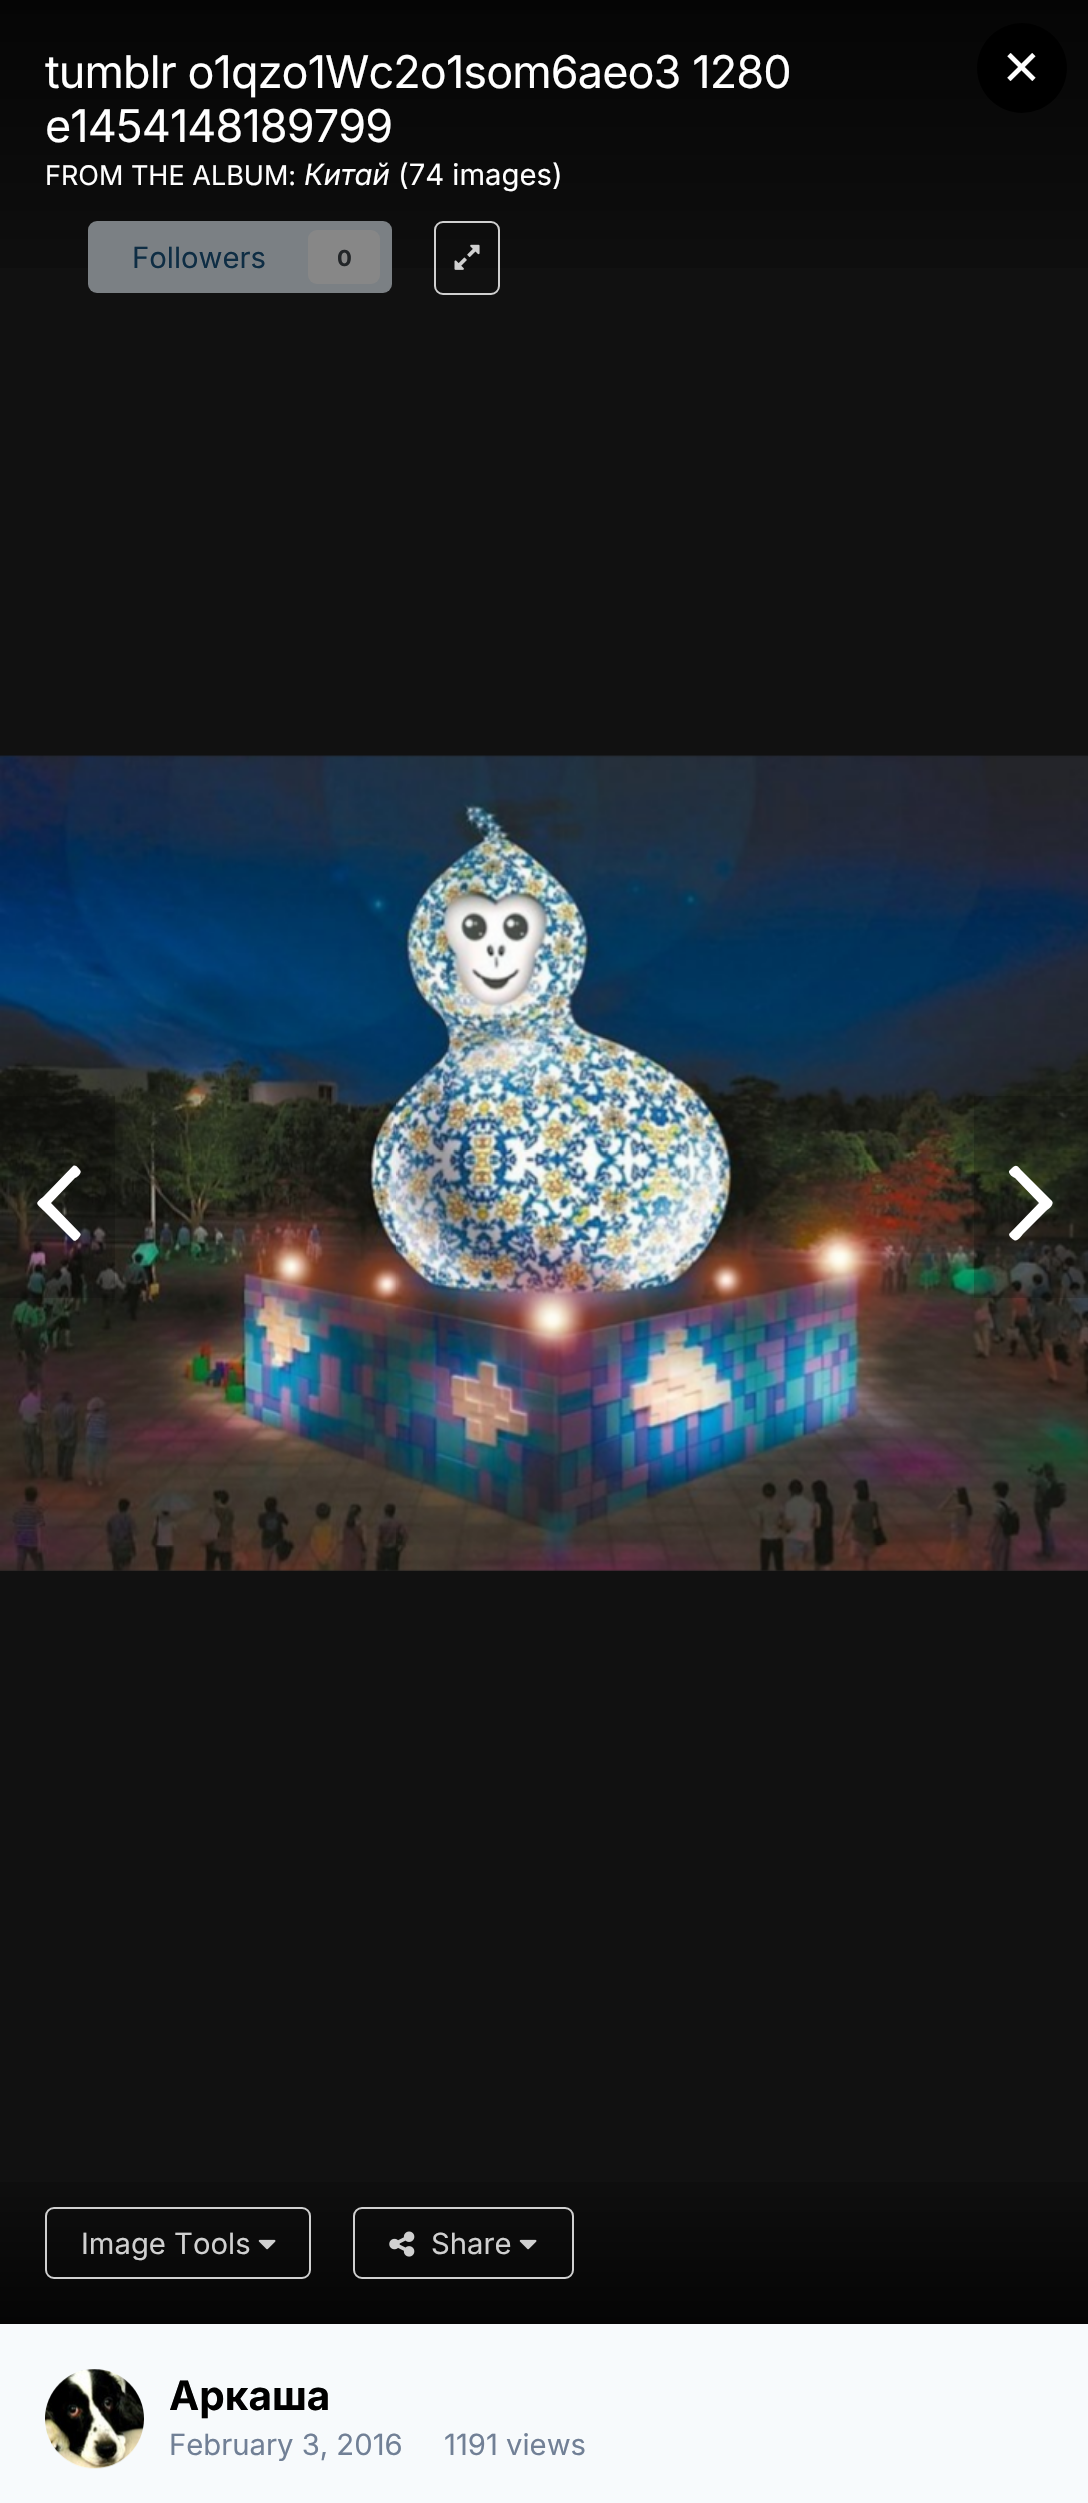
void draw(SkCanvas* canvas) {
	SkPaint fill;
	fill.setAntiAlias(true);
	auto makeFont = [&](const char* family, int weight, float size, bool italic = false) {
		SkFontStyle style(weight, SkFontStyle::kNormal_Width,
			italic ? SkFontStyle::kItalic_Slant : SkFontStyle::kUpright_Slant);
		SkFont result(fontMgr->matchFamilyStyle(family, style), size);
		result.setSubpixel(true);
		return result;
	};
	auto text = [&](const char* s, float x, float y, const SkFont& font) {
		canvas->drawString(s, x, y, font, fill);
	};
	auto spacedText = [&](const char* s, float x, float y, const SkFont& font, const SkPaint& ink, float letter, float word) {
		std::vector<SkGlyphID> glyphs(font.countText(s, strlen(s), SkTextEncoding::kUTF8));
		std::vector<float> xs(glyphs.size());
		font.textToGlyphs(s, strlen(s), SkTextEncoding::kUTF8, glyphs);
		font.getXPos(glyphs, xs, x);
		float extra = 0;
		for (size_t i = 0; i < glyphs.size(); i++) {
			xs[i] += extra;
			extra += letter + word * (glyphs[i] == font.unicharToGlyph(' '));
		}
		canvas->drawTextBlob(SkTextBlob::MakeFromPosHGlyphs(glyphs, xs, y, font), 0, 0, ink);
	};
	auto box = [&](float l, float t, float r, float b) {
		canvas->drawRect(SkRect::MakeLTRB(l, t, r, b), fill);
	};
	auto roundBox = [&](float l, float t, float r, float b, float radius) {
		canvas->drawRoundRect(SkRect::MakeLTRB(l, t, r, b), radius, radius, fill);
	};
	auto picture = [&](const char* path, float l, float t, float r, float b) {
		auto image = SkImages::DeferredFromEncodedData(SkData::MakeFromFileName(path));
		canvas->drawImageRect(image, SkRect::MakeLTRB(l, t, r, b), SkSamplingOptions());
	};
	canvas->clear(0xFF111111);
	{
		const SkColor colors[] = {0xFF050505, 0xFF111111};
		const float stops[] = {0, 1};
		const SkPoint ends[] = {{545, 0}, {545, 338}};
		fill.setShader(SkGradientShader::MakeLinear(ends, colors, stops, 2, SkTileMode::kClamp));
		fill.setAlpha(255);
	}
	box(0, 0, 1088, 268);
	fill.setShader(nullptr);
	fill.setColor(0xFF7B8084);
	roundBox(88, 221, 392, 293, 9);
	fill.setColor(0xFF878787);
	roundBox(308, 230, 380, 284, 9);
	fill.setStyle(SkPaint::kStroke_Style);
	fill.setStrokeWidth(2);
	fill.setColor(0xFFD0D0D0);
	canvas->drawRoundRect(SkRect::MakeLTRB(435, 222, 499, 294), 8, 8, fill);
	picture("image0.png", 454, 244, 480, 270);
	fill.setStyle(SkPaint::kFill_Style);
	{
		const SkColor colors[] = {0xFF111111, 0xFF050505};
		const float stops[] = {0, 1};
		const SkPoint ends[] = {{545, 2144}, {545, 2324}};
		fill.setShader(SkGradientShader::MakeLinear(ends, colors, stops, 2, SkTileMode::kClamp));
		fill.setAlpha(255);
	}
	box(0, 2182, 1088, 2324);
	fill.setStyle(SkPaint::kStroke_Style);
	fill.setShader(nullptr);
	fill.setColor(0xFFD0D0D0);
	canvas->drawRoundRect(SkRect::MakeLTRB(46, 2208, 310, 2278), 8, 8, fill);
	picture("image1.png", 258, 2239, 276, 2250);
	canvas->drawRoundRect(SkRect::MakeLTRB(354, 2208, 573, 2278), 8, 8, fill);
	picture("image2.png", 389, 2231, 415, 2257);
	picture("image1.png", 519, 2239, 537, 2250);
	fill.setStyle(SkPaint::kFill_Style);
	fill.setColor(0xFF222222);
	box(0, 756, 1088, 1571);
	picture("image3.png", 0, 755, 1088, 1571);
	fill.setColor(0x33000000);
	box(0, 1096, 115, 1298);
	fill.setColor(0xFFFFFFFF);
	canvas->drawPath(SkPathBuilder().moveTo(80, 1170).cubicTo(83, 1173, 76, 1178, 75, 1178).lineTo(51, 1203).lineTo(80, 1233).cubicTo(82, 1235, 79, 1237, 78, 1239).cubicTo(76, 1240, 75, 1242, 73, 1240).lineTo(44, 1211).cubicTo(35, 1202, 35, 1204, 44, 1196).lineTo(73, 1166).cubicTo(76, 1164, 79, 1169, 80, 1170).close().detach(), fill);
	fill.setColor(0x33000000);
	box(974, 1096, 1088, 1298);
	fill.setColor(0xFFFFFFFF);
	canvas->drawPath(SkPathBuilder().moveTo(1052, 1201).cubicTo(1055, 1205, 1047, 1210, 1046, 1211).lineTo(1023, 1234).cubicTo(1023, 1234, 1017, 1243, 1014, 1240).cubicTo(1012, 1239, 1007, 1235, 1010, 1233).lineTo(1039, 1203).lineTo(1015, 1178).cubicTo(1014, 1178, 1008, 1174, 1009, 1171).lineTo(1012, 1168).cubicTo(1017, 1163, 1018, 1167, 1023, 1172).close().detach(), fill);
	fill.setColor(0xFFF7FAFC);
	box(0, 2324, 1088, 2503);
	fill.setColor(0xFFFFFFFF);
	canvas->drawCircle(94.5f, 2418.5f, 49.5f, fill);
	picture("image4.png", 45, 2369, 144, 2469);
	fill.setColor(0xFF000000);
	canvas->drawCircle(1022, 68, 45, fill);
	auto font1 = makeFont("Inter", 400, 45);
	fill.setColor(0xFFFFFFFF);
	spacedText("tumblr o1qzo1Wc2o1som6aeo3 1280", 45, 88, font1, fill, -0.9f, 0);
	spacedText("e1454148189799", 45, 142, font1, fill, -0.9f, 0);
	auto font2 = makeFont("Inter", 400, 27);
	text("FROM THE ALBUM:", 45, 185, font2);
	auto font3 = makeFont("Inter", 400, 29.25f, true);
	text("Китай", 304, 185, font3);
	auto font4 = makeFont("Inter", 400, 29.25f);
	text("(74 images)", 398, 185, font4);
	fill.setColor(0xFF0E2D44);
	text("Followers", 132, 268, font4);
	auto font5 = makeFont("Inter", 700, 22);
	fill.setColor(0xFF222528);
	text("0", 337, 266, font5);
	fill.setColor(0xFFD0D0D0);
	text("Image Tools", 81, 2254, font4);
	text("Share", 431, 2254, font4);
	auto font6 = makeFont("Inter", 700, 40.5f);
	fill.setColor(0xFF000000);
	text("Аркаша", 169, 2410, font6);
	fill.setColor(0xFF718096);
	text("February 3, 2016", 169, 2455, font4);
	text("1191 views", 444, 2455, font4);
	auto font7 = makeFont("Liberation Sans", 400, 63);
	fill.setColor(0xFFFFFFFF);
	text("×", 1003, 88, font7);
}
